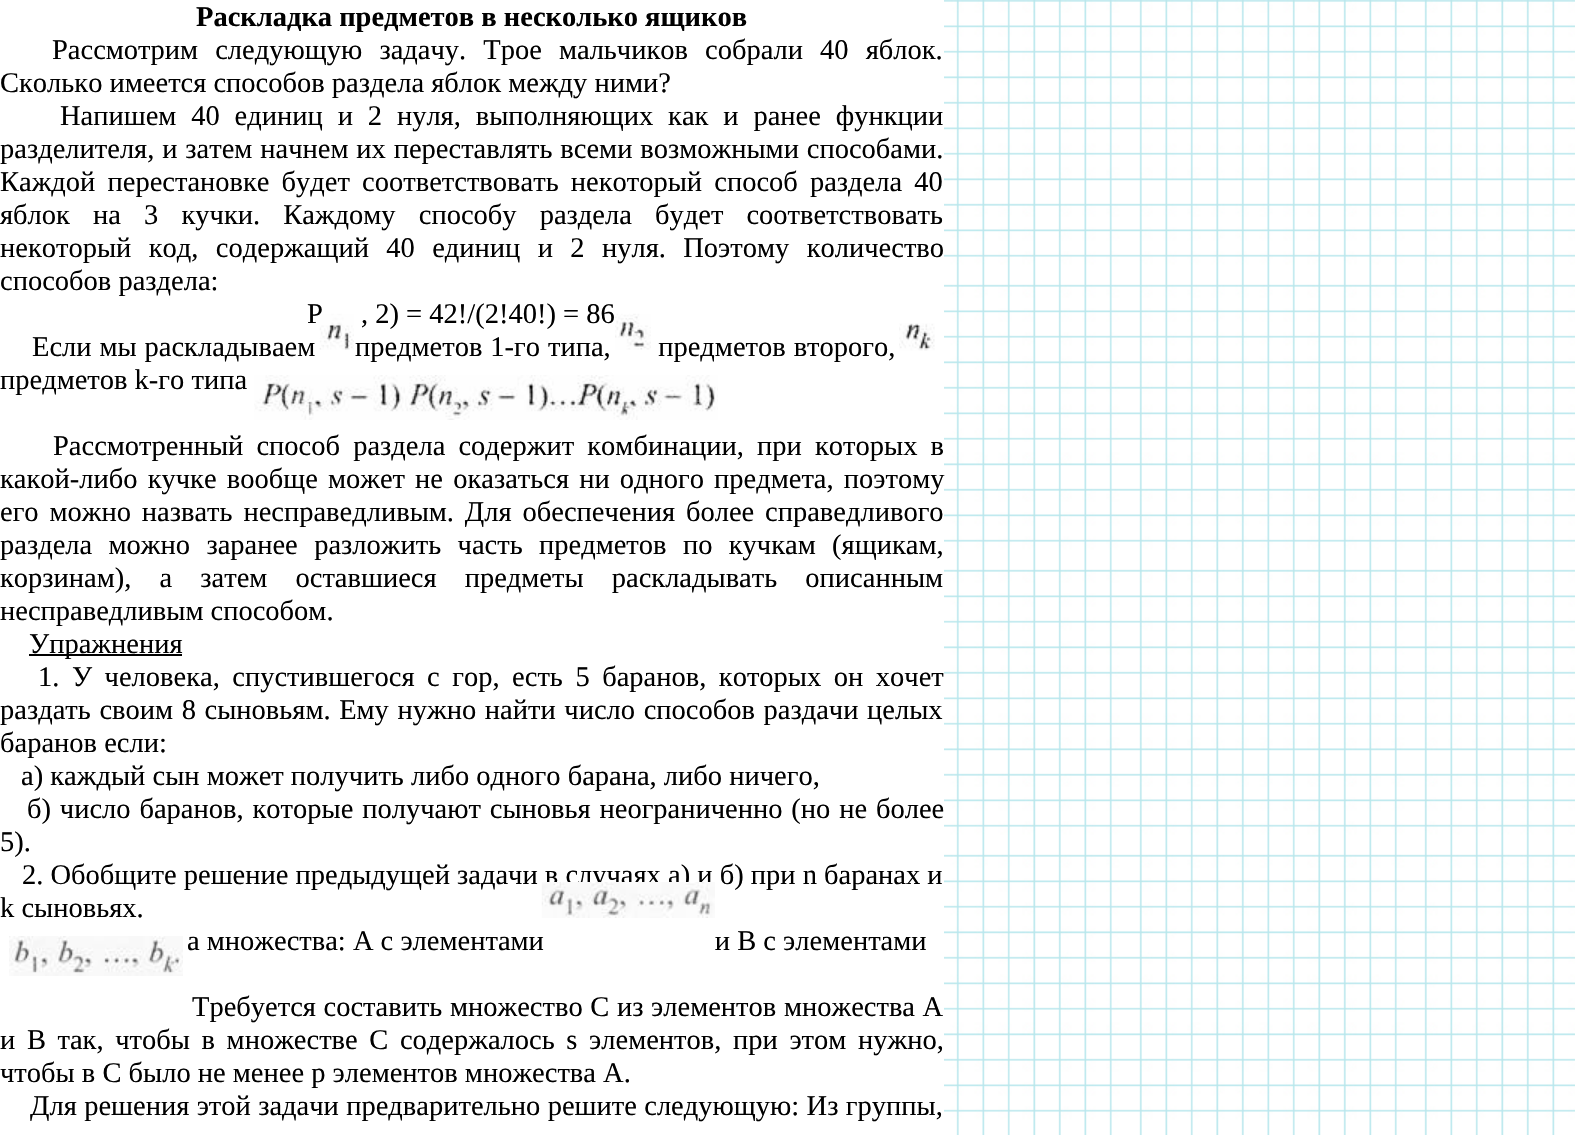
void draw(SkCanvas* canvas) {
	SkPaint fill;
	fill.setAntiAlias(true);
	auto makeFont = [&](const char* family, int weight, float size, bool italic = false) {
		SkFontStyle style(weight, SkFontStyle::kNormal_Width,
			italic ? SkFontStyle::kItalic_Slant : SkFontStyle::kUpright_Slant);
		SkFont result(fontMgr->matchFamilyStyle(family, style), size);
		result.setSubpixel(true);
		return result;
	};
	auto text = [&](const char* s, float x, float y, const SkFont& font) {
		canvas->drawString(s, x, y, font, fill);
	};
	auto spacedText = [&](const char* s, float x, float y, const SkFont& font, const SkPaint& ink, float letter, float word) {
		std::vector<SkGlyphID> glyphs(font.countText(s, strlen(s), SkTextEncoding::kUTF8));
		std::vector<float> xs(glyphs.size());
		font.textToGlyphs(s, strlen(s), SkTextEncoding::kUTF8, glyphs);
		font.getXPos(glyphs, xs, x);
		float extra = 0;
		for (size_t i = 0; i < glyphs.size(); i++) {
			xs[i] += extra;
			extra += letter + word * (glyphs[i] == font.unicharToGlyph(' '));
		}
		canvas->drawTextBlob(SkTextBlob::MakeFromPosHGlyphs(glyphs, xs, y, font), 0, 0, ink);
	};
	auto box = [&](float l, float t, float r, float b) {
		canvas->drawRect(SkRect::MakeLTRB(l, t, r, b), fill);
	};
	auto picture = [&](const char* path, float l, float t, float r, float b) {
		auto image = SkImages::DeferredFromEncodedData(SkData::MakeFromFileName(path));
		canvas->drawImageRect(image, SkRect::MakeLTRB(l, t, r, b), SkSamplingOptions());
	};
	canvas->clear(0xFFFFFFFF);
	picture("image0.png", 944, 0, 1575, 1135);
	fill.setColor(0xFF000000);
	box(29, 654, 182, 656);
	picture("image3.png", 899, 323, 935, 351);
	picture("image4.png", 254, 375, 718, 420);
	picture("image6.png", 9, 936, 183, 976);
	auto font1 = makeFont("Liberation Serif", 700, 28.5f);
	text("Раскладка предметов в несколько ящиков", 196, 26, font1);
	auto font2 = makeFont("Liberation Serif", 400, 28.5f);
	spacedText("Рассмотрим следующую задачу. Трое мальчиков собрали 40 яблок.", 52, 59, font2, fill, 0, 10);
	text("Сколько имеется способов раздела яблок между ними?", 0, 92, font2);
	spacedText("Напишем 40 единиц и 2 нуля, выполняющих как и ранее функции", 60, 125, font2, fill, 0, 7.75f);
	spacedText("разделителя, и затем начнем их переставлять всеми возможными способами.", 0, 158, font2, fill, 0, 0.75f);
	spacedText("Каждой перестановке будет соответствовать некоторый способ раздела 40", 0, 191, font2, fill, 0, 5);
	spacedText("яблок на 3 кучки. Каждому способу раздела будет соответствовать", 0, 224, font2, fill, 0, 16);
	spacedText("некоторый код, содержащий 40 единиц и 2 нуля. Поэтому количество", 0, 257, font2, fill, 0, 10.25f);
	text("способов раздела:", 0, 290, font2);
	text("Р", 307, 323, font2);
	text(", 2) = 42!/(2!40!) = 86", 361, 323, font2);
	spacedText("Если мы раскладываем     предметов 1-го типа,      предметов второго,", 32, 356, font2, fill, 0, 0.8f);
	text("предметов k-го типа", 0, 389, font2);
	spacedText("Рассмотренный способ раздела содержит комбинации, при которых в", 53, 455, font2, fill, 0, 6);
	spacedText("какой-либо кучке вообще может не оказаться ни одного предмета, поэтому", 0, 488, font2, fill, 0, 3);
	spacedText("его можно назвать несправедливым. Для обеспечения более справедливого", 0, 521, font2, fill, 0, 3.75f);
	spacedText("раздела можно заранее разложить часть предметов по кучкам (ящикам,", 0, 554, font2, fill, 0, 9.25f);
	spacedText("корзинам), а затем оставшиеся предметы раскладывать описанным", 0, 587, font2, fill, 0, 21);
	text("несправедливым способом.", 0, 620, font2);
	text("Упражнения", 29, 653, font2);
	spacedText("1. У человека, спустившегося с гор, есть 5 баранов, которых он хочет", 38, 686, font2, fill, 0, 5.4f);
	spacedText("раздать своим 8 сыновьям. Ему нужно найти число способов раздачи целых", 0, 719, font2, fill, 0, 1.5f);
	text("баранов если:", 0, 752, font2);
	text("а) каждый сын может получить либо одного барана, либо ничего,", 21, 785, font2);
	spacedText("б) число баранов, которые получают сыновья неограниченно (но не более", 27, 818, font2, fill, 0, 1.75f);
	text("5).", 0, 851, font2);
	text("2. Обобщите решение предыдущей задачи в случаях а) и б) при n баранах и", 22, 884, font2);
	text("k сыновьях.", 0, 917, font2);
	text("а множества: А с элементами                        и В с элементами", 187, 950, font2);
	spacedText("Требуется составить множество С из элементов множества А", 192, 1016, font2, fill, 0, 0.5f);
	spacedText("и В так, чтобы в множестве С содержалось s элементов, при этом нужно,", 0, 1049, font2, fill, 0, 4.5f);
	text("чтобы в С было не менее р элементов множества А.", 0, 1082, font2);
	spacedText("Для решения этой задачи предварительно решите следующую: Из группы,", 30, 1115, font2, fill, 0, 0.25f);
	picture("image1.png", 319, 313, 354, 350);
	picture("image2.png", 615, 313, 651, 350);
	picture("image5.png", 541, 882, 715, 918);
}
